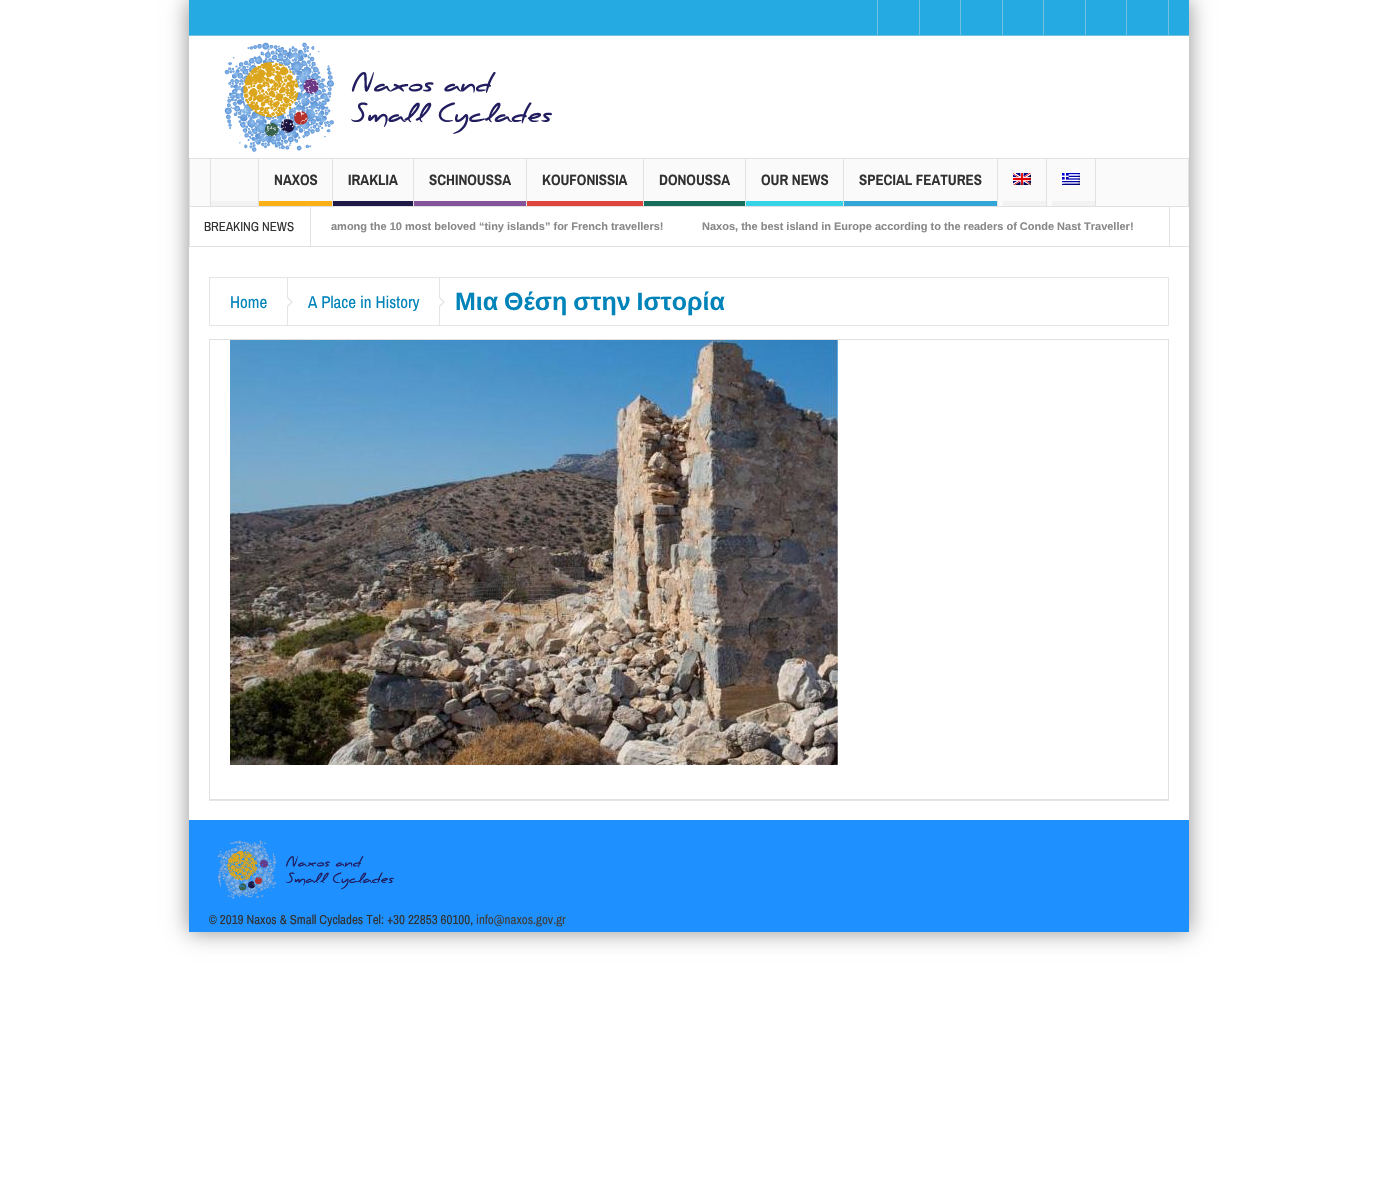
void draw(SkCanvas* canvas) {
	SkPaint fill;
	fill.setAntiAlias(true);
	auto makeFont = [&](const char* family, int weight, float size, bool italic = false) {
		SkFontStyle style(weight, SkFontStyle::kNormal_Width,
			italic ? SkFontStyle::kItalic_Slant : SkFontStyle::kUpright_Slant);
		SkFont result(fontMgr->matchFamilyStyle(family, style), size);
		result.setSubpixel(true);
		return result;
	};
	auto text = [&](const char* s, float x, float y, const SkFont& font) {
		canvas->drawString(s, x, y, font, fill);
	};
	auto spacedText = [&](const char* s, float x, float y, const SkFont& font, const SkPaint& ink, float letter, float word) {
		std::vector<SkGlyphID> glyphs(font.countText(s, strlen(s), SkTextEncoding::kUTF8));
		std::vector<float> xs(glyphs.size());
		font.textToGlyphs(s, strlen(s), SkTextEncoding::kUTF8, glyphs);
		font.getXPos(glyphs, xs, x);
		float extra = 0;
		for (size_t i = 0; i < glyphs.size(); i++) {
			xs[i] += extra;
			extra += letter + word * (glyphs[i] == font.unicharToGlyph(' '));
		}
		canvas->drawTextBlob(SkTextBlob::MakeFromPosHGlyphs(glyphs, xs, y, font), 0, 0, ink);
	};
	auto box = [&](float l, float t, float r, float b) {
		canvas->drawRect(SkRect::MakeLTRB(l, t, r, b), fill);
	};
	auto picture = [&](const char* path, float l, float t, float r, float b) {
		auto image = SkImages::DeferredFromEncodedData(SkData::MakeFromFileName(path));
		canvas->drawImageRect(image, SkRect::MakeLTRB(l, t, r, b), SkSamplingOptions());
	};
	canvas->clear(0xFFFFFFFF);
	canvas->save();
	canvas->clipPath(SkPathBuilder(SkPathFillType::kEvenOdd).moveTo(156, 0).lineTo(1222, 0).lineTo(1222, 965).lineTo(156, 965).close().moveTo(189, 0).lineTo(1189, 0).lineTo(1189, 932).lineTo(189, 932).close().detach(), true);
	fill.setColor(0x70000000);
	fill.setMaskFilter(SkMaskFilter::MakeBlur(kNormal_SkBlurStyle, 10.5f));
	canvas->drawRect(SkRect::MakeLTRB(189, 0, 1189, 932), fill);
	fill.setMaskFilter(nullptr);
	canvas->restore();
	fill.setColor(0xFF25AAE1);
	box(189, 0, 1189, 35);
	fill.setColor(0xFF74C0E0);
	box(189, 35, 1189, 36);
	box(919, 0, 920, 35);
	box(877, 0, 878, 35);
	box(960, 0, 961, 35);
	box(1002, 0, 1003, 35);
	box(1043, 0, 1044, 35);
	box(1085, 0, 1086, 35);
	box(1126, 0, 1127, 35);
	box(1168, 0, 1169, 35);
	picture("image0.png", 224, 42, 552, 152);
	fill.setColor(0xFFFAFAFA);
	canvas->drawRect(SkRect::MakeLTRB(189.5f, 158.5f, 1188.5f, 206.5f), fill);
	fill.setStyle(SkPaint::kStroke_Style);
	fill.setStrokeWidth(1);
	fill.setColor(0xFFE1E1E1);
	canvas->drawRect(SkRect::MakeLTRB(189.5f, 158.5f, 1188.5f, 206.5f), fill);
	fill.setStyle(SkPaint::kFill_Style);
	box(258, 159, 259, 206);
	box(210, 159, 211, 206);
	fill.setColor(0xFFF2F2F2);
	box(211, 201, 258, 206);
	fill.setColor(0xFFE1E1E1);
	box(332, 159, 333, 206);
	fill.setColor(0xFFFCB017);
	box(259, 201, 332, 206);
	fill.setColor(0xFFE1E1E1);
	box(413, 159, 414, 206);
	fill.setColor(0xFF1F1947);
	box(333, 201, 413, 206);
	fill.setColor(0xFFE1E1E1);
	box(526, 159, 527, 206);
	fill.setColor(0xFF85559B);
	box(414, 201, 526, 206);
	fill.setColor(0xFFE1E1E1);
	box(643, 159, 644, 206);
	fill.setColor(0xFFDF463E);
	box(527, 201, 643, 206);
	fill.setColor(0xFFE1E1E1);
	box(745, 159, 746, 206);
	fill.setColor(0xFF166D5C);
	box(644, 201, 745, 206);
	fill.setColor(0xFFE1E1E1);
	box(843, 159, 844, 206);
	fill.setColor(0xFF36D3E6);
	box(746, 201, 843, 206);
	fill.setColor(0xFFE1E1E1);
	box(997, 159, 998, 206);
	fill.setColor(0xFF31A6D7);
	box(844, 201, 997, 206);
	fill.setColor(0xFFE1E1E1);
	box(1046, 159, 1047, 206);
	picture("image1.png", 1013, 173, 1031, 185);
	fill.setColor(0xFFF2F2F2);
	box(1003, 201, 1046, 206);
	fill.setColor(0xFFE1E1E1);
	box(1095, 159, 1096, 206);
	picture("image2.png", 1062, 173, 1080, 185);
	fill.setColor(0xFFF2F2F2);
	box(1052, 201, 1095, 206);
	fill.setColor(0xFFE1E1E1);
	box(189, 246, 1189, 247);
	box(310, 207, 311, 246);
	box(189, 207, 190, 246);
	box(1169, 207, 1170, 246);
	fill.setStyle(SkPaint::kStroke_Style);
	fill.setColor(0xFFE5E5E5);
	canvas->drawRect(SkRect::MakeLTRB(209.5f, 277.5f, 1168.5f, 325.5f), fill);
	fill.setStyle(SkPaint::kFill_Style);
	box(287, 278, 288, 325);
	canvas->drawPath(SkPathBuilder().moveTo(287, 308).lineTo(287, 296).lineTo(293, 302).close().detach(), fill);
	fill.setColor(0xFFFFFFFF);
	canvas->drawPath(SkPathBuilder().moveTo(287, 306).lineTo(287, 298).lineTo(291, 302).close().detach(), fill);
	fill.setColor(0xFFE5E5E5);
	box(439, 278, 440, 325);
	canvas->drawPath(SkPathBuilder().moveTo(439, 308).lineTo(439, 296).lineTo(445, 302).close().detach(), fill);
	fill.setColor(0xFFFFFFFF);
	canvas->drawPath(SkPathBuilder().moveTo(439, 306).lineTo(439, 298).lineTo(443, 302).close().detach(), fill);
	fill.setColor(0xFFE5E5E5);
	box(209, 800, 1169, 801);
	fill.setStyle(SkPaint::kStroke_Style);
	fill.setColor(0xFFE1E1E1);
	canvas->drawRect(SkRect::MakeLTRB(209.5f, 339.5f, 1168.5f, 799.5f), fill);
	picture("image3.png", 230, 340, 838, 765);
	fill.setStyle(SkPaint::kFill_Style);
	fill.setColor(0xFF1E90FF);
	box(189, 820, 1189, 932);
	picture("image4.png", 217, 840, 394, 899);
	auto font1 = makeFont("Archivo Narrow", 700, 15);
	fill.setColor(0xFF313131);
	text("NAXOS", 274, 185, font1);
	text("IRAKLIA", 348, 185, font1);
	text("SCHINOUSSA", 429, 185, font1);
	text("KOUFONISSIA", 542, 185, font1);
	text("DONOUSSA", 659, 185, font1);
	text("OUR NEWS", 761, 185, font1);
	text("SPECIAL FEATURES", 859, 185, font1);
	auto font2 = makeFont("Archivo Narrow", 400, 13);
	text("BREAKING NEWS", 204, 231, font2);
	auto font3 = makeFont("Liberation Sans", 700, 11);
	fill.setColor(0xFF888888);
	text("among the 10 most beloved “tiny islands” for French travellers!", 331, 230, font3);
	text("Naxos, the best island in Europe according to the readers of Conde Nast Traveller!", 702, 230, font3);
	auto font4 = makeFont("Archivo Narrow", 400, 17);
	fill.setColor(0xFF0083B9);
	text("Home", 230, 308, font4);
	text("A Place in History", 308, 308, font4);
	auto font5 = makeFont("Liberation Sans", 700, 25);
	spacedText("Μια Θέση στην Ιστορία", 455, 310, font5, fill, 0, -1);
	fill.setColor(0xFF313131);
	text("© 2019 Naxos & Small Cyclades Tel: +30 22853 60100,", 209, 924, font2);
	fill.setColor(0xFF3F3F3F);
	text("info@naxos.gov.gr", 476, 924, font2);
}
